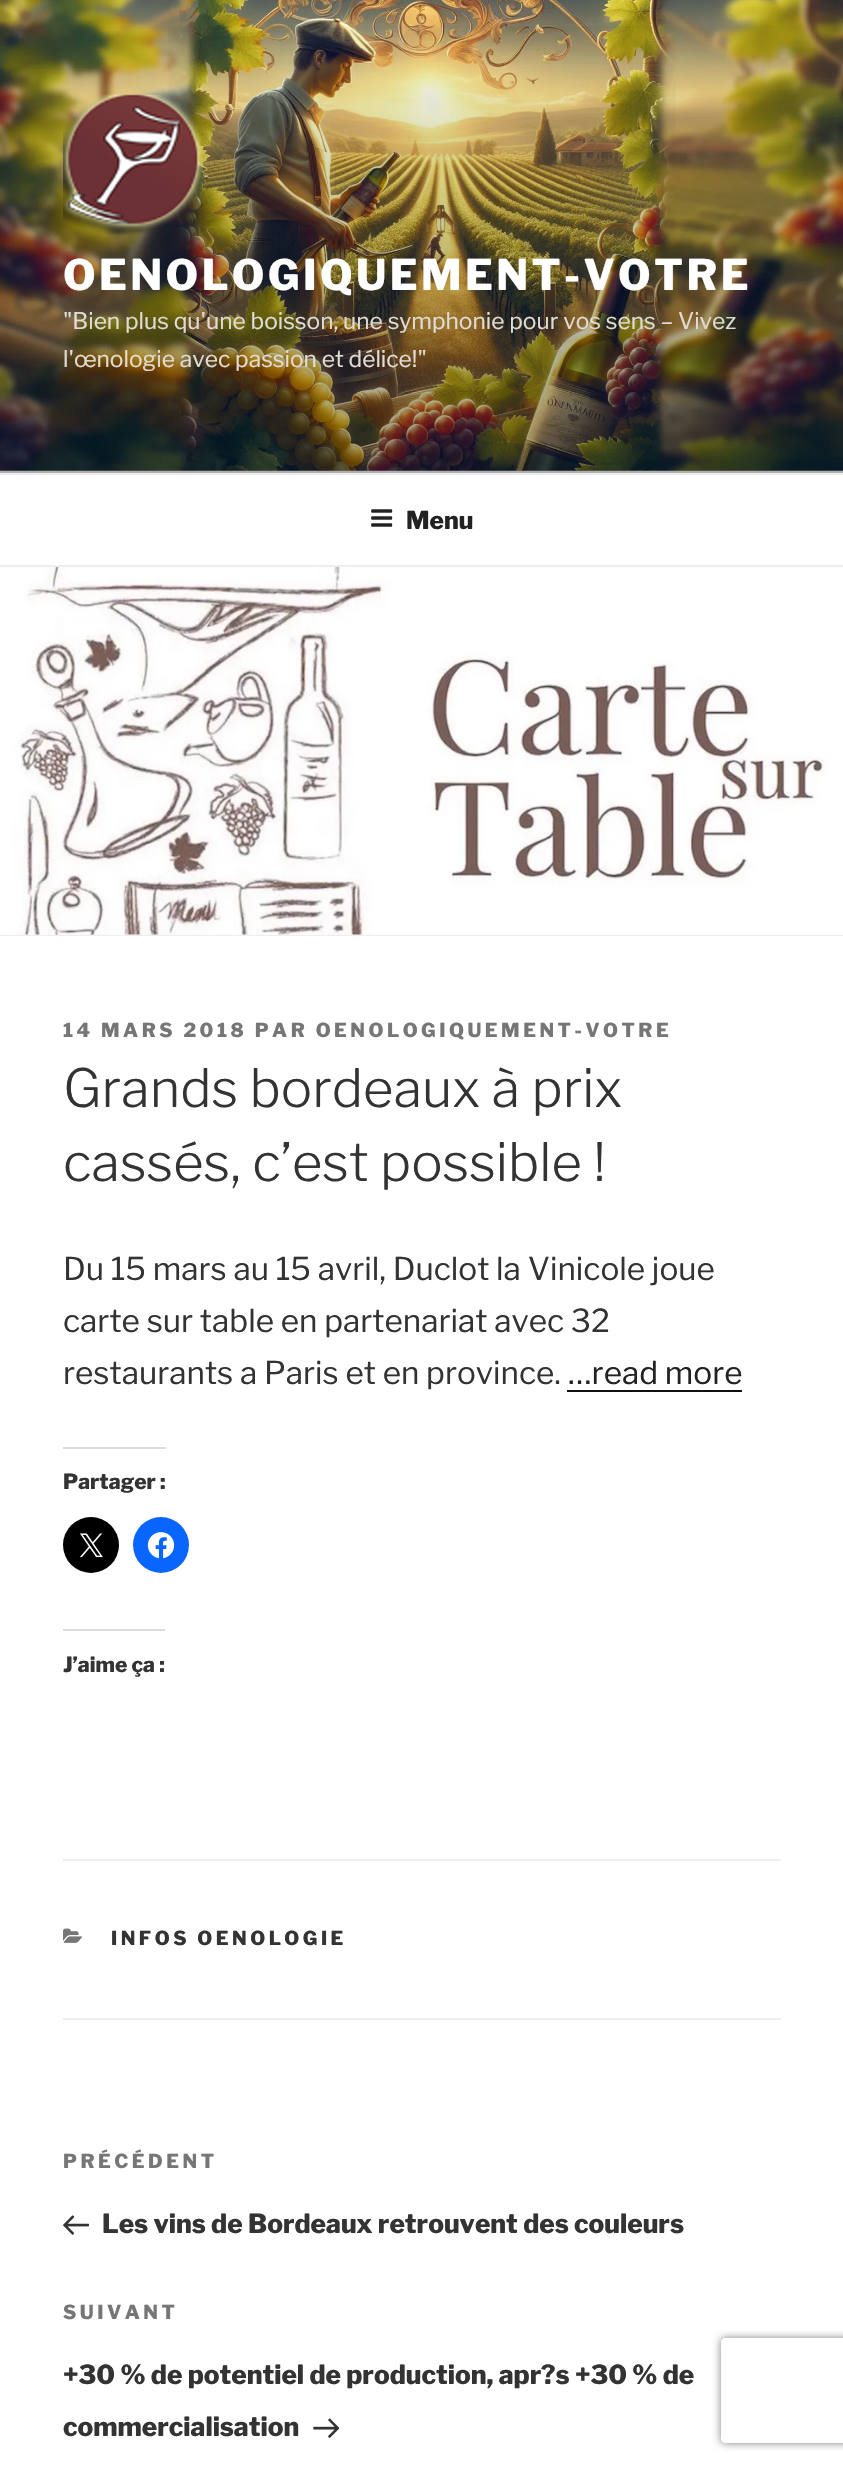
void draw(SkCanvas* canvas) {
	SkPaint fill;
	fill.setAntiAlias(true);
	auto makeFont = [&](const char* family, int weight, float size, bool italic = false) {
		SkFontStyle style(weight, SkFontStyle::kNormal_Width,
			italic ? SkFontStyle::kItalic_Slant : SkFontStyle::kUpright_Slant);
		SkFont result(fontMgr->matchFamilyStyle(family, style), size);
		result.setSubpixel(true);
		return result;
	};
	auto text = [&](const char* s, float x, float y, const SkFont& font) {
		canvas->drawString(s, x, y, font, fill);
	};
	auto spacedText = [&](const char* s, float x, float y, const SkFont& font, const SkPaint& ink, float letter, float word) {
		std::vector<SkGlyphID> glyphs(font.countText(s, strlen(s), SkTextEncoding::kUTF8));
		std::vector<float> xs(glyphs.size());
		font.textToGlyphs(s, strlen(s), SkTextEncoding::kUTF8, glyphs);
		font.getXPos(glyphs, xs, x);
		float extra = 0;
		for (size_t i = 0; i < glyphs.size(); i++) {
			xs[i] += extra;
			extra += letter + word * (glyphs[i] == font.unicharToGlyph(' '));
		}
		canvas->drawTextBlob(SkTextBlob::MakeFromPosHGlyphs(glyphs, xs, y, font), 0, 0, ink);
	};
	auto box = [&](float l, float t, float r, float b) {
		canvas->drawRect(SkRect::MakeLTRB(l, t, r, b), fill);
	};
	auto picture = [&](const char* path, float l, float t, float r, float b) {
		auto image = SkImages::DeferredFromEncodedData(SkData::MakeFromFileName(path));
		canvas->drawImageRect(image, SkRect::MakeLTRB(l, t, r, b), SkSamplingOptions());
	};
	canvas->clear(0xFFFAFAFA);
	picture("image0.png", 0, 0, 843, 471);
	{
		const SkColor colors[] = {0x00000000, 0x4D000000, 0x4D000000};
		const float stops[] = {0, 0.75f, 1};
		const SkPoint ends[] = {{422, 0}, {422, 473}};
		fill.setShader(SkGradientShader::MakeLinear(ends, colors, stops, 3, SkTileMode::kClamp));
		fill.setAlpha(255);
	}
	box(0, 26, 843, 473);
	picture("image1.png", 63, 94, 203, 235);
	fill.setShader(nullptr);
	fill.setColor(0xFFFFFFFF);
	box(0, 475, 843, 565);
	fill.setColor(0xFFEEEEEE);
	box(0, 473, 843, 475);
	box(0, 565, 843, 567);
	picture("image2.png", 371, 509, 393, 527);
	box(0, 935, 843, 936);
	picture("image3.png", 0, 567, 843, 935);
	fill.setColor(0xFFFFFFFF);
	box(0, 936, 843, 2467);
	fill.setColor(0xFF0F0F0F);
	box(567, 1390, 742, 1392);
	fill.setColor(0xFFDCDCDE);
	box(63, 1447, 166, 1449);
	fill.setColor(0xFF000000);
	canvas->drawCircle(91, 1545, 28, fill);
	picture("image4.png", 80, 1533, 103, 1558);
	fill.setColor(0xFF0866FF);
	canvas->drawCircle(161, 1545, 28, fill);
	picture("image5.png", 147, 1532, 175, 1559);
	fill.setColor(0xFFDCDCDE);
	box(63, 1629, 165, 1631);
	fill.setColor(0xFFEEEEEE);
	box(63, 1859, 781, 1861);
	box(63, 2018, 781, 2020);
	picture("image6.png", 63, 1928, 82, 1943);
	picture("image7.png", 63, 2215, 89, 2235);
	picture("image8.png", 313, 2418, 340, 2438);
	canvas->save();
	canvas->clipPath(SkPathBuilder(SkPathFillType::kEvenOdd).moveTo(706, 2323).lineTo(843, 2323).lineTo(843, 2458).lineTo(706, 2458).close().moveTo(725, 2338).lineTo(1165, 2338).cubicTo(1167, 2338, 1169, 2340, 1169, 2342).lineTo(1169, 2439).cubicTo(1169, 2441, 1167, 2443, 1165, 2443).lineTo(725, 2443).cubicTo(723, 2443, 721, 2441, 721, 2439).lineTo(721, 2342).cubicTo(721, 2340, 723, 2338, 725, 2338).close().detach(), true);
	fill.setColor(0xFF808080);
	fill.setMaskFilter(SkMaskFilter::MakeBlur(kNormal_SkBlurStyle, 4.5f));
	canvas->drawRoundRect(SkRect::MakeLTRB(721, 2338, 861, 2443), 4, 4, fill);
	fill.setMaskFilter(nullptr);
	canvas->restore();
	auto font1 = makeFont("Libre Franklin", 100, 42);
	fill.setColor(0xFFFFFFFF);
	spacedText("OENOLOGIQUEMENT-VOTRE", 63, 290, font1, fill, 3.4f, 0);
	auto font2 = makeFont("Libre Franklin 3", 100, 22.75f);
	fill.setColor(0xFFE0DCD3);
	text("\"Bien plus qu'une boisson, une symphonie pour vos sens – Vivez", 63, 329, font2);
	text("l'œnologie avec passion et délice!\"", 63, 367, font2);
	auto font3 = makeFont("Libre Franklin", 100, 24.5f);
	fill.setColor(0xFF222222);
	text("Menu", 406, 529, font3);
	auto font4 = makeFont("Libre Franklin", 100, 19.25f);
	fill.setColor(0xFF767676);
	spacedText("14 MARS 2018 PAR OENOLOGIQUEMENT-VOTRE", 63, 1037, font4, fill, 3.5f, 0);
	auto font5 = makeFont("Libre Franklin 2", 100, 52.5f);
	fill.setColor(0xFF333333);
	text("Grands bordeaux à prix", 63, 1107, font5);
	text("cassés, c’est possible !", 63, 1181, font5);
	auto font6 = makeFont("Libre Franklin 3", 100, 31.5f);
	text("Du 15 mars au 15 avril, Duclot la Vinicole joue", 63, 1280, font6);
	text("carte sur table en partenariat avec 32", 63, 1332, font6);
	text("restaurants a Paris et en province.", 63, 1384, font6);
	fill.setColor(0xFF222222);
	text("…read more", 568, 1384, font6);
	auto font7 = makeFont("Libre Franklin", 100, 21);
	fill.setColor(0xFF333333);
	text("Partager :", 63, 1489, font7);
	text("J’aime ça :", 63, 1672, font7);
	spacedText("INFOS OENOLOGIE", 111, 1945, font4, fill, 3.5f, 0);
	fill.setColor(0xFF767676);
	spacedText("PRÉCÉDENT", 63, 2168, font4, fill, 3.5f, 0);
	auto font8 = makeFont("Libre Franklin", 100, 26.25f);
	fill.setColor(0xFF333333);
	text("Les vins de Bordeaux retrouvent des couleurs", 102, 2233, font8);
	fill.setColor(0xFF767676);
	spacedText("SUIVANT", 63, 2319, font4, fill, 3.5f, 0);
	fill.setColor(0xFF333333);
	text("+30 % de potentiel de production, apr?s +30 % de", 63, 2384, font8);
	text("commercialisation", 63, 2436, font8);
}
